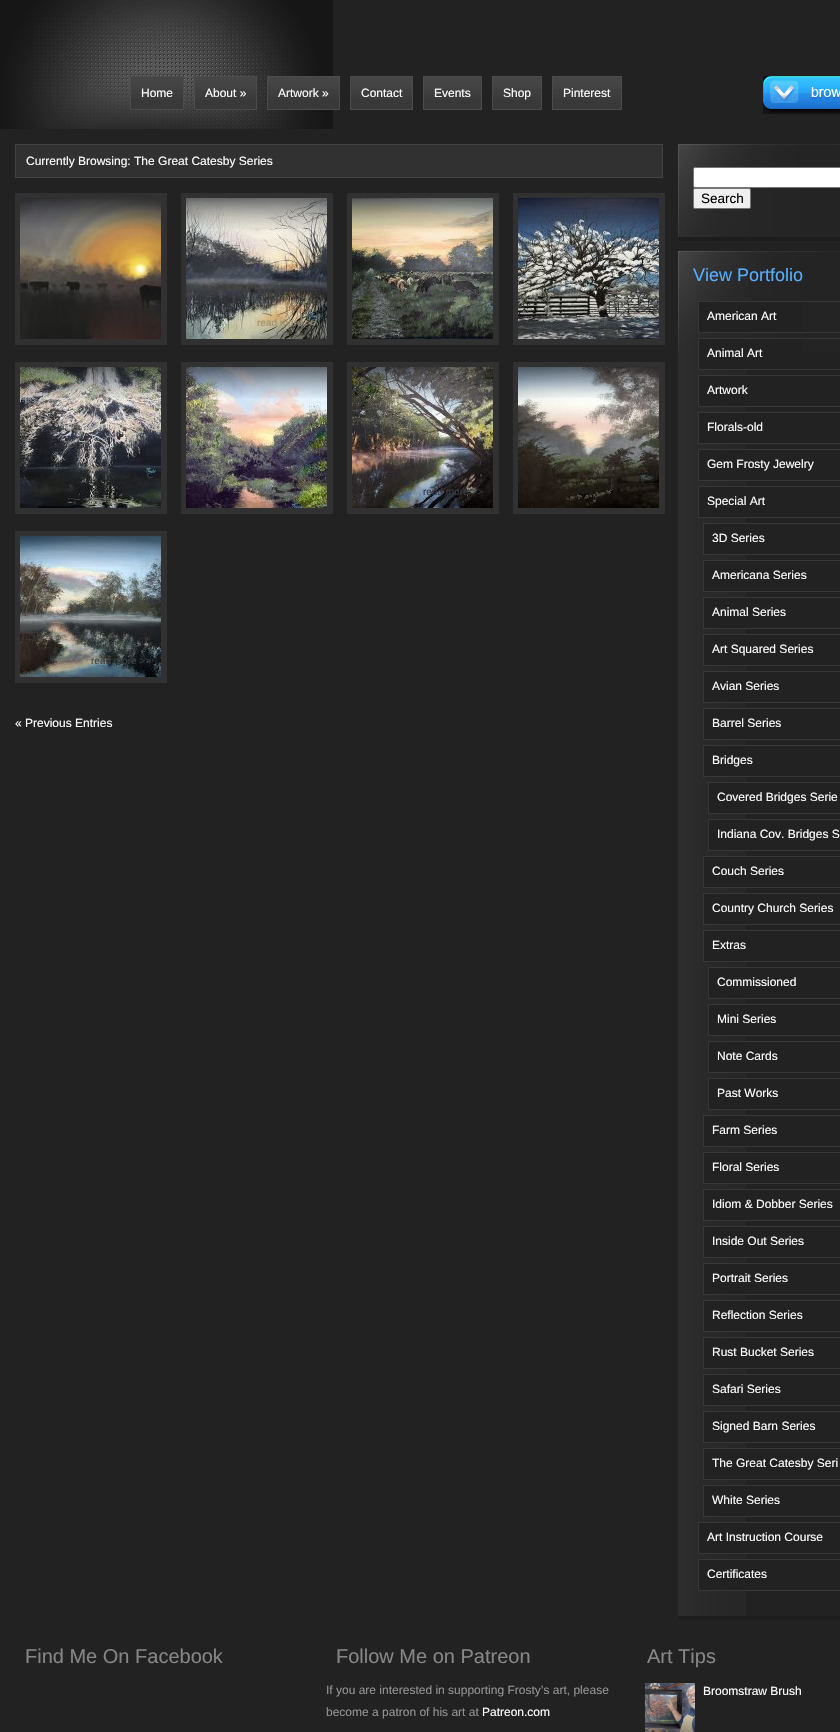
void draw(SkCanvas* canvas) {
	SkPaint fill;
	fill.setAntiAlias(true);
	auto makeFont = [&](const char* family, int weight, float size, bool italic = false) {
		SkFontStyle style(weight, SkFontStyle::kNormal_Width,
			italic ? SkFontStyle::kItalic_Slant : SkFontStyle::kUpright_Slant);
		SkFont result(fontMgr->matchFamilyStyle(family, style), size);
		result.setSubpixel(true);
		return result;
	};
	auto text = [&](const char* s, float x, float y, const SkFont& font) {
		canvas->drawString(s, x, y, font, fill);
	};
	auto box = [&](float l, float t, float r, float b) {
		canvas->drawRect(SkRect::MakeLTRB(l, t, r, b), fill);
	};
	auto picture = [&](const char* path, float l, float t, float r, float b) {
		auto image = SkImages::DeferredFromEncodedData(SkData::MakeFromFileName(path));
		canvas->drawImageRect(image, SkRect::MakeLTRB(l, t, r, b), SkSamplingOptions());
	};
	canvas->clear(0xFF222222);
	picture("image0.png", 0, 0, 333, 129);
	picture("image1.png", 131, 77, 183, 109);
	fill.setStyle(SkPaint::kStroke_Style);
	fill.setStrokeWidth(1);
	fill.setColor(0xFF4C4C4C);
	canvas->drawRect(SkRect::MakeLTRB(130.5f, 76.5f, 183.5f, 109.5f), fill);
	picture("image2.png", 195, 77, 256, 109);
	canvas->drawRect(SkRect::MakeLTRB(194.5f, 76.5f, 256.5f, 109.5f), fill);
	picture("image3.png", 268, 77, 339, 109);
	canvas->drawRect(SkRect::MakeLTRB(267.5f, 76.5f, 339.5f, 109.5f), fill);
	picture("image2.png", 351, 77, 412, 109);
	canvas->drawRect(SkRect::MakeLTRB(350.5f, 76.5f, 412.5f, 109.5f), fill);
	picture("image4.png", 424, 77, 481, 109);
	canvas->drawRect(SkRect::MakeLTRB(423.5f, 76.5f, 481.5f, 109.5f), fill);
	picture("image5.png", 493, 77, 541, 109);
	canvas->drawRect(SkRect::MakeLTRB(492.5f, 76.5f, 541.5f, 109.5f), fill);
	picture("image6.png", 553, 77, 621, 109);
	canvas->drawRect(SkRect::MakeLTRB(552.5f, 76.5f, 621.5f, 109.5f), fill);
	picture("image7.png", 763, 76, 840, 114);
	fill.setStyle(SkPaint::kFill_Style);
	fill.setColor(0xFF313131);
	canvas->drawRect(SkRect::MakeLTRB(15.5f, 144.5f, 662.5f, 177.5f), fill);
	fill.setStyle(SkPaint::kStroke_Style);
	fill.setColor(0xFF424242);
	canvas->drawRect(SkRect::MakeLTRB(15.5f, 144.5f, 662.5f, 177.5f), fill);
	fill.setStyle(SkPaint::kFill_Style);
	fill.setColor(0xFF313131);
	box(15, 193, 167, 345);
	picture("image8.png", 20, 198, 161, 339);
	picture("image9.png", 20, 198, 161, 229);
	box(181, 193, 333, 345);
	picture("image10.png", 186, 198, 327, 339);
	picture("image11.png", 186, 198, 327, 229);
	box(347, 193, 499, 345);
	picture("image12.png", 352, 198, 493, 339);
	picture("image13.png", 352, 198, 493, 229);
	box(513, 193, 665, 345);
	picture("image14.png", 518, 198, 659, 339);
	picture("image15.png", 518, 198, 659, 229);
	box(15, 362, 167, 514);
	picture("image16.png", 20, 367, 161, 508);
	picture("image17.png", 20, 367, 161, 398);
	box(181, 362, 333, 514);
	picture("image18.png", 186, 367, 327, 508);
	picture("image19.png", 186, 367, 327, 398);
	box(347, 362, 499, 514);
	picture("image20.png", 352, 367, 493, 508);
	picture("image21.png", 352, 367, 493, 398);
	box(513, 362, 665, 514);
	picture("image22.png", 518, 367, 659, 508);
	picture("image23.png", 518, 367, 659, 398);
	box(15, 531, 167, 683);
	picture("image24.png", 20, 536, 161, 677);
	picture("image25.png", 20, 536, 161, 567);
	fill.setColor(0xFF1D1D1D);
	box(678, 237, 840, 241);
	picture("image26.png", 678, 144, 840, 237);
	fill.setColor(0xFFFFFFFF);
	canvas->drawRoundRect(SkRect::MakeLTRB(693.5f, 167.5f, 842.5f, 187.5f), 1.5f, 1.5f, fill);
	fill.setStyle(SkPaint::kStroke_Style);
	fill.setColor(0xFF767676);
	canvas->drawRoundRect(SkRect::MakeLTRB(693.5f, 167.5f, 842.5f, 187.5f), 1.5f, 1.5f, fill);
	fill.setStyle(SkPaint::kFill_Style);
	fill.setColor(0xFFEFEFEF);
	canvas->drawRoundRect(SkRect::MakeLTRB(693.5f, 188.5f, 750.5f, 208.5f), 1.5f, 1.5f, fill);
	fill.setStyle(SkPaint::kStroke_Style);
	fill.setColor(0xFF767676);
	canvas->drawRoundRect(SkRect::MakeLTRB(693.5f, 188.5f, 750.5f, 208.5f), 1.5f, 1.5f, fill);
	picture("image27.png", 678, 352, 746, 1616);
	fill.setStyle(SkPaint::kFill_Style);
	fill.setColor(0xFF1D1D1D);
	box(678, 1616, 840, 1620);
	picture("image28.png", 678, 251, 840, 352);
	fill.setColor(0xFF222222);
	box(699, 302, 802, 332);
	fill.setStyle(SkPaint::kStroke_Style);
	fill.setColor(0xFF373737);
	canvas->drawRect(SkRect::MakeLTRB(698.5f, 301.5f, 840.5f, 332.5f), fill);
	fill.setStyle(SkPaint::kFill_Style);
	fill.setColor(0xFF222222);
	box(699, 339, 803, 369);
	fill.setStyle(SkPaint::kStroke_Style);
	fill.setColor(0xFF373737);
	canvas->drawRect(SkRect::MakeLTRB(698.5f, 338.5f, 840.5f, 369.5f), fill);
	fill.setStyle(SkPaint::kFill_Style);
	fill.setColor(0xFF222222);
	box(699, 376, 746, 406);
	fill.setStyle(SkPaint::kStroke_Style);
	fill.setColor(0xFF373737);
	canvas->drawRect(SkRect::MakeLTRB(698.5f, 375.5f, 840.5f, 406.5f), fill);
	fill.setStyle(SkPaint::kFill_Style);
	fill.setColor(0xFF222222);
	box(699, 413, 746, 443);
	fill.setStyle(SkPaint::kStroke_Style);
	fill.setColor(0xFF373737);
	canvas->drawRect(SkRect::MakeLTRB(698.5f, 412.5f, 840.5f, 443.5f), fill);
	fill.setStyle(SkPaint::kFill_Style);
	fill.setColor(0xFF222222);
	box(699, 450, 746, 480);
	fill.setStyle(SkPaint::kStroke_Style);
	fill.setColor(0xFF373737);
	canvas->drawRect(SkRect::MakeLTRB(698.5f, 449.5f, 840.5f, 480.5f), fill);
	fill.setStyle(SkPaint::kFill_Style);
	fill.setColor(0xFF222222);
	box(699, 487, 746, 517);
	fill.setStyle(SkPaint::kStroke_Style);
	fill.setColor(0xFF373737);
	canvas->drawRect(SkRect::MakeLTRB(698.5f, 486.5f, 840.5f, 517.5f), fill);
	fill.setStyle(SkPaint::kFill_Style);
	fill.setColor(0xFF222222);
	box(704, 524, 746, 554);
	fill.setStyle(SkPaint::kStroke_Style);
	fill.setColor(0xFF373737);
	canvas->drawRect(SkRect::MakeLTRB(703.5f, 523.5f, 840.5f, 554.5f), fill);
	fill.setStyle(SkPaint::kFill_Style);
	fill.setColor(0xFF222222);
	box(704, 561, 746, 591);
	fill.setStyle(SkPaint::kStroke_Style);
	fill.setColor(0xFF373737);
	canvas->drawRect(SkRect::MakeLTRB(703.5f, 560.5f, 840.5f, 591.5f), fill);
	fill.setStyle(SkPaint::kFill_Style);
	fill.setColor(0xFF222222);
	box(704, 598, 746, 628);
	fill.setStyle(SkPaint::kStroke_Style);
	fill.setColor(0xFF373737);
	canvas->drawRect(SkRect::MakeLTRB(703.5f, 597.5f, 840.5f, 628.5f), fill);
	fill.setStyle(SkPaint::kFill_Style);
	fill.setColor(0xFF222222);
	box(704, 635, 746, 665);
	fill.setStyle(SkPaint::kStroke_Style);
	fill.setColor(0xFF373737);
	canvas->drawRect(SkRect::MakeLTRB(703.5f, 634.5f, 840.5f, 665.5f), fill);
	fill.setStyle(SkPaint::kFill_Style);
	fill.setColor(0xFF222222);
	box(704, 672, 746, 702);
	fill.setStyle(SkPaint::kStroke_Style);
	fill.setColor(0xFF373737);
	canvas->drawRect(SkRect::MakeLTRB(703.5f, 671.5f, 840.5f, 702.5f), fill);
	fill.setStyle(SkPaint::kFill_Style);
	fill.setColor(0xFF222222);
	box(704, 709, 746, 739);
	fill.setStyle(SkPaint::kStroke_Style);
	fill.setColor(0xFF373737);
	canvas->drawRect(SkRect::MakeLTRB(703.5f, 708.5f, 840.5f, 739.5f), fill);
	fill.setStyle(SkPaint::kFill_Style);
	fill.setColor(0xFF222222);
	box(704, 746, 746, 776);
	fill.setStyle(SkPaint::kStroke_Style);
	fill.setColor(0xFF373737);
	canvas->drawRect(SkRect::MakeLTRB(703.5f, 745.5f, 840.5f, 776.5f), fill);
	fill.setStyle(SkPaint::kFill_Style);
	fill.setColor(0xFF222222);
	box(709, 783, 746, 813);
	fill.setStyle(SkPaint::kStroke_Style);
	fill.setColor(0xFF373737);
	canvas->drawRect(SkRect::MakeLTRB(708.5f, 782.5f, 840.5f, 813.5f), fill);
	fill.setStyle(SkPaint::kFill_Style);
	fill.setColor(0xFF222222);
	box(709, 820, 746, 850);
	fill.setStyle(SkPaint::kStroke_Style);
	fill.setColor(0xFF373737);
	canvas->drawRect(SkRect::MakeLTRB(708.5f, 819.5f, 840.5f, 850.5f), fill);
	fill.setStyle(SkPaint::kFill_Style);
	fill.setColor(0xFF222222);
	box(704, 857, 746, 887);
	fill.setStyle(SkPaint::kStroke_Style);
	fill.setColor(0xFF373737);
	canvas->drawRect(SkRect::MakeLTRB(703.5f, 856.5f, 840.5f, 887.5f), fill);
	fill.setStyle(SkPaint::kFill_Style);
	fill.setColor(0xFF222222);
	box(704, 894, 746, 924);
	fill.setStyle(SkPaint::kStroke_Style);
	fill.setColor(0xFF373737);
	canvas->drawRect(SkRect::MakeLTRB(703.5f, 893.5f, 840.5f, 924.5f), fill);
	fill.setStyle(SkPaint::kFill_Style);
	fill.setColor(0xFF222222);
	box(704, 931, 746, 961);
	fill.setStyle(SkPaint::kStroke_Style);
	fill.setColor(0xFF373737);
	canvas->drawRect(SkRect::MakeLTRB(703.5f, 930.5f, 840.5f, 961.5f), fill);
	fill.setStyle(SkPaint::kFill_Style);
	fill.setColor(0xFF222222);
	box(709, 968, 746, 998);
	fill.setStyle(SkPaint::kStroke_Style);
	fill.setColor(0xFF373737);
	canvas->drawRect(SkRect::MakeLTRB(708.5f, 967.5f, 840.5f, 998.5f), fill);
	fill.setStyle(SkPaint::kFill_Style);
	fill.setColor(0xFF222222);
	box(709, 1005, 746, 1035);
	fill.setStyle(SkPaint::kStroke_Style);
	fill.setColor(0xFF373737);
	canvas->drawRect(SkRect::MakeLTRB(708.5f, 1004.5f, 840.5f, 1035.5f), fill);
	fill.setStyle(SkPaint::kFill_Style);
	fill.setColor(0xFF222222);
	box(709, 1042, 746, 1072);
	fill.setStyle(SkPaint::kStroke_Style);
	fill.setColor(0xFF373737);
	canvas->drawRect(SkRect::MakeLTRB(708.5f, 1041.5f, 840.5f, 1072.5f), fill);
	fill.setStyle(SkPaint::kFill_Style);
	fill.setColor(0xFF222222);
	box(709, 1079, 746, 1109);
	fill.setStyle(SkPaint::kStroke_Style);
	fill.setColor(0xFF373737);
	canvas->drawRect(SkRect::MakeLTRB(708.5f, 1078.5f, 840.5f, 1109.5f), fill);
	fill.setStyle(SkPaint::kFill_Style);
	fill.setColor(0xFF222222);
	box(704, 1116, 746, 1146);
	fill.setStyle(SkPaint::kStroke_Style);
	fill.setColor(0xFF373737);
	canvas->drawRect(SkRect::MakeLTRB(703.5f, 1115.5f, 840.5f, 1146.5f), fill);
	fill.setStyle(SkPaint::kFill_Style);
	fill.setColor(0xFF222222);
	box(704, 1153, 746, 1183);
	fill.setStyle(SkPaint::kStroke_Style);
	fill.setColor(0xFF373737);
	canvas->drawRect(SkRect::MakeLTRB(703.5f, 1152.5f, 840.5f, 1183.5f), fill);
	fill.setStyle(SkPaint::kFill_Style);
	fill.setColor(0xFF222222);
	box(704, 1190, 746, 1220);
	fill.setStyle(SkPaint::kStroke_Style);
	fill.setColor(0xFF373737);
	canvas->drawRect(SkRect::MakeLTRB(703.5f, 1189.5f, 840.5f, 1220.5f), fill);
	fill.setStyle(SkPaint::kFill_Style);
	fill.setColor(0xFF222222);
	box(704, 1227, 746, 1257);
	fill.setStyle(SkPaint::kStroke_Style);
	fill.setColor(0xFF373737);
	canvas->drawRect(SkRect::MakeLTRB(703.5f, 1226.5f, 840.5f, 1257.5f), fill);
	fill.setStyle(SkPaint::kFill_Style);
	fill.setColor(0xFF222222);
	box(704, 1264, 746, 1294);
	fill.setStyle(SkPaint::kStroke_Style);
	fill.setColor(0xFF373737);
	canvas->drawRect(SkRect::MakeLTRB(703.5f, 1263.5f, 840.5f, 1294.5f), fill);
	fill.setStyle(SkPaint::kFill_Style);
	fill.setColor(0xFF222222);
	box(704, 1301, 746, 1331);
	fill.setStyle(SkPaint::kStroke_Style);
	fill.setColor(0xFF373737);
	canvas->drawRect(SkRect::MakeLTRB(703.5f, 1300.5f, 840.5f, 1331.5f), fill);
	fill.setStyle(SkPaint::kFill_Style);
	fill.setColor(0xFF222222);
	box(704, 1338, 746, 1368);
	fill.setStyle(SkPaint::kStroke_Style);
	fill.setColor(0xFF373737);
	canvas->drawRect(SkRect::MakeLTRB(703.5f, 1337.5f, 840.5f, 1368.5f), fill);
	fill.setStyle(SkPaint::kFill_Style);
	fill.setColor(0xFF222222);
	box(704, 1375, 746, 1405);
	fill.setStyle(SkPaint::kStroke_Style);
	fill.setColor(0xFF373737);
	canvas->drawRect(SkRect::MakeLTRB(703.5f, 1374.5f, 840.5f, 1405.5f), fill);
	fill.setStyle(SkPaint::kFill_Style);
	fill.setColor(0xFF222222);
	box(704, 1412, 746, 1442);
	fill.setStyle(SkPaint::kStroke_Style);
	fill.setColor(0xFF373737);
	canvas->drawRect(SkRect::MakeLTRB(703.5f, 1411.5f, 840.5f, 1442.5f), fill);
	fill.setStyle(SkPaint::kFill_Style);
	fill.setColor(0xFF222222);
	box(704, 1449, 746, 1479);
	fill.setStyle(SkPaint::kStroke_Style);
	fill.setColor(0xFF373737);
	canvas->drawRect(SkRect::MakeLTRB(703.5f, 1448.5f, 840.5f, 1479.5f), fill);
	fill.setStyle(SkPaint::kFill_Style);
	fill.setColor(0xFF222222);
	box(704, 1486, 746, 1516);
	fill.setStyle(SkPaint::kStroke_Style);
	fill.setColor(0xFF373737);
	canvas->drawRect(SkRect::MakeLTRB(703.5f, 1485.5f, 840.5f, 1516.5f), fill);
	fill.setStyle(SkPaint::kFill_Style);
	fill.setColor(0xFF222222);
	box(699, 1523, 746, 1553);
	fill.setStyle(SkPaint::kStroke_Style);
	fill.setColor(0xFF373737);
	canvas->drawRect(SkRect::MakeLTRB(698.5f, 1522.5f, 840.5f, 1553.5f), fill);
	fill.setStyle(SkPaint::kFill_Style);
	fill.setColor(0xFF222222);
	box(699, 1560, 746, 1590);
	fill.setStyle(SkPaint::kStroke_Style);
	fill.setColor(0xFF373737);
	canvas->drawRect(SkRect::MakeLTRB(698.5f, 1559.5f, 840.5f, 1590.5f), fill);
	picture("image29.png", 645, 1683, 695, 1732);
	auto font1 = makeFont("Liberation Sans", 400, 12);
	fill.setStyle(SkPaint::kFill_Style);
	fill.setColor(0xFFFFFFFF);
	text("Home", 141, 97, font1);
	text("About »", 205, 97, font1);
	text("Artwork »", 278, 97, font1);
	text("Contact", 361, 97, font1);
	text("Events", 434, 97, font1);
	text("Shop", 503, 97, font1);
	text("Pinterest", 563, 97, font1);
	text("Currently Browsing: The Great Catesby Series", 26, 165, font1);
	auto font2 = makeFont("Liberation Sans", 400, 10);
	fill.setColor(0xFF9C9072);
	text("read more >>", 257, 326, font2);
	fill.setColor(0xFF383C45);
	text("read more >>", 423, 495, font2);
	fill.setColor(0xFF3E4545);
	text("read more >>", 91, 664, font2);
	fill.setColor(0xFFFFFFFF);
	text("« Previous Entries", 15, 727, font1);
	auto font3 = makeFont("Liberation Sans", 400, 13.5f);
	fill.setColor(0xFF000000);
	text("Search", 701, 203, font3);
	auto font4 = makeFont("Liberation Sans", 400, 18);
	fill.setColor(0xFF56ADFF);
	text("View Portfolio", 693, 281, font4);
	fill.setColor(0xFFFFFFFF);
	text("American Art", 707, 320, font1);
	text("Animal Art", 707, 357, font1);
	text("Artwork", 707, 394, font1);
	text("Florals-old", 707, 431, font1);
	text("Gem Frosty Jewelry", 707, 468, font1);
	text("Special Art", 707, 505, font1);
	text("3D Series", 712, 542, font1);
	text("Americana Series", 712, 579, font1);
	text("Animal Series", 712, 616, font1);
	text("Art Squared Series", 712, 653, font1);
	text("Avian Series", 712, 690, font1);
	text("Barrel Series", 712, 727, font1);
	text("Bridges", 712, 764, font1);
	text("Covered Bridges Serie", 717, 801, font1);
	text("Indiana Cov. Bridges S", 717, 838, font1);
	text("Couch Series", 712, 875, font1);
	text("Country Church Series", 712, 912, font1);
	text("Extras", 712, 949, font1);
	text("Commissioned", 717, 986, font1);
	text("Mini Series", 717, 1023, font1);
	text("Note Cards", 717, 1060, font1);
	text("Past Works", 717, 1097, font1);
	text("Farm Series", 712, 1134, font1);
	text("Floral Series", 712, 1171, font1);
	text("Idiom & Dobber Series", 712, 1208, font1);
	text("Inside Out Series", 712, 1245, font1);
	text("Portrait Series", 712, 1282, font1);
	text("Reflection Series", 712, 1319, font1);
	text("Rust Bucket Series", 712, 1356, font1);
	text("Safari Series", 712, 1393, font1);
	text("Signed Barn Series", 712, 1430, font1);
	text("The Great Catesby Seri", 712, 1467, font1);
	text("White Series", 712, 1504, font1);
	text("Art Instruction Course", 707, 1541, font1);
	text("Certificates", 707, 1578, font1);
	auto font5 = makeFont("Liberation Sans", 400, 20);
	fill.setColor(0xFF868686);
	text("Find Me On Facebook", 25, 1663, font5);
	text("Follow Me on Patreon", 336, 1663, font5);
	fill.setColor(0xFF939393);
	text("If you are interested in supporting Frosty’s art, please", 326, 1694, font1);
	text("become a patron of his art at", 326, 1716, font1);
	fill.setColor(0xFFFFFFFF);
	text("Patreon.com", 482, 1716, font1);
	fill.setColor(0xFF868686);
	text("Art Tips", 647, 1663, font5);
	fill.setColor(0xFFFFFFFF);
	text("Broomstraw Brush", 703, 1695, font1);
}
